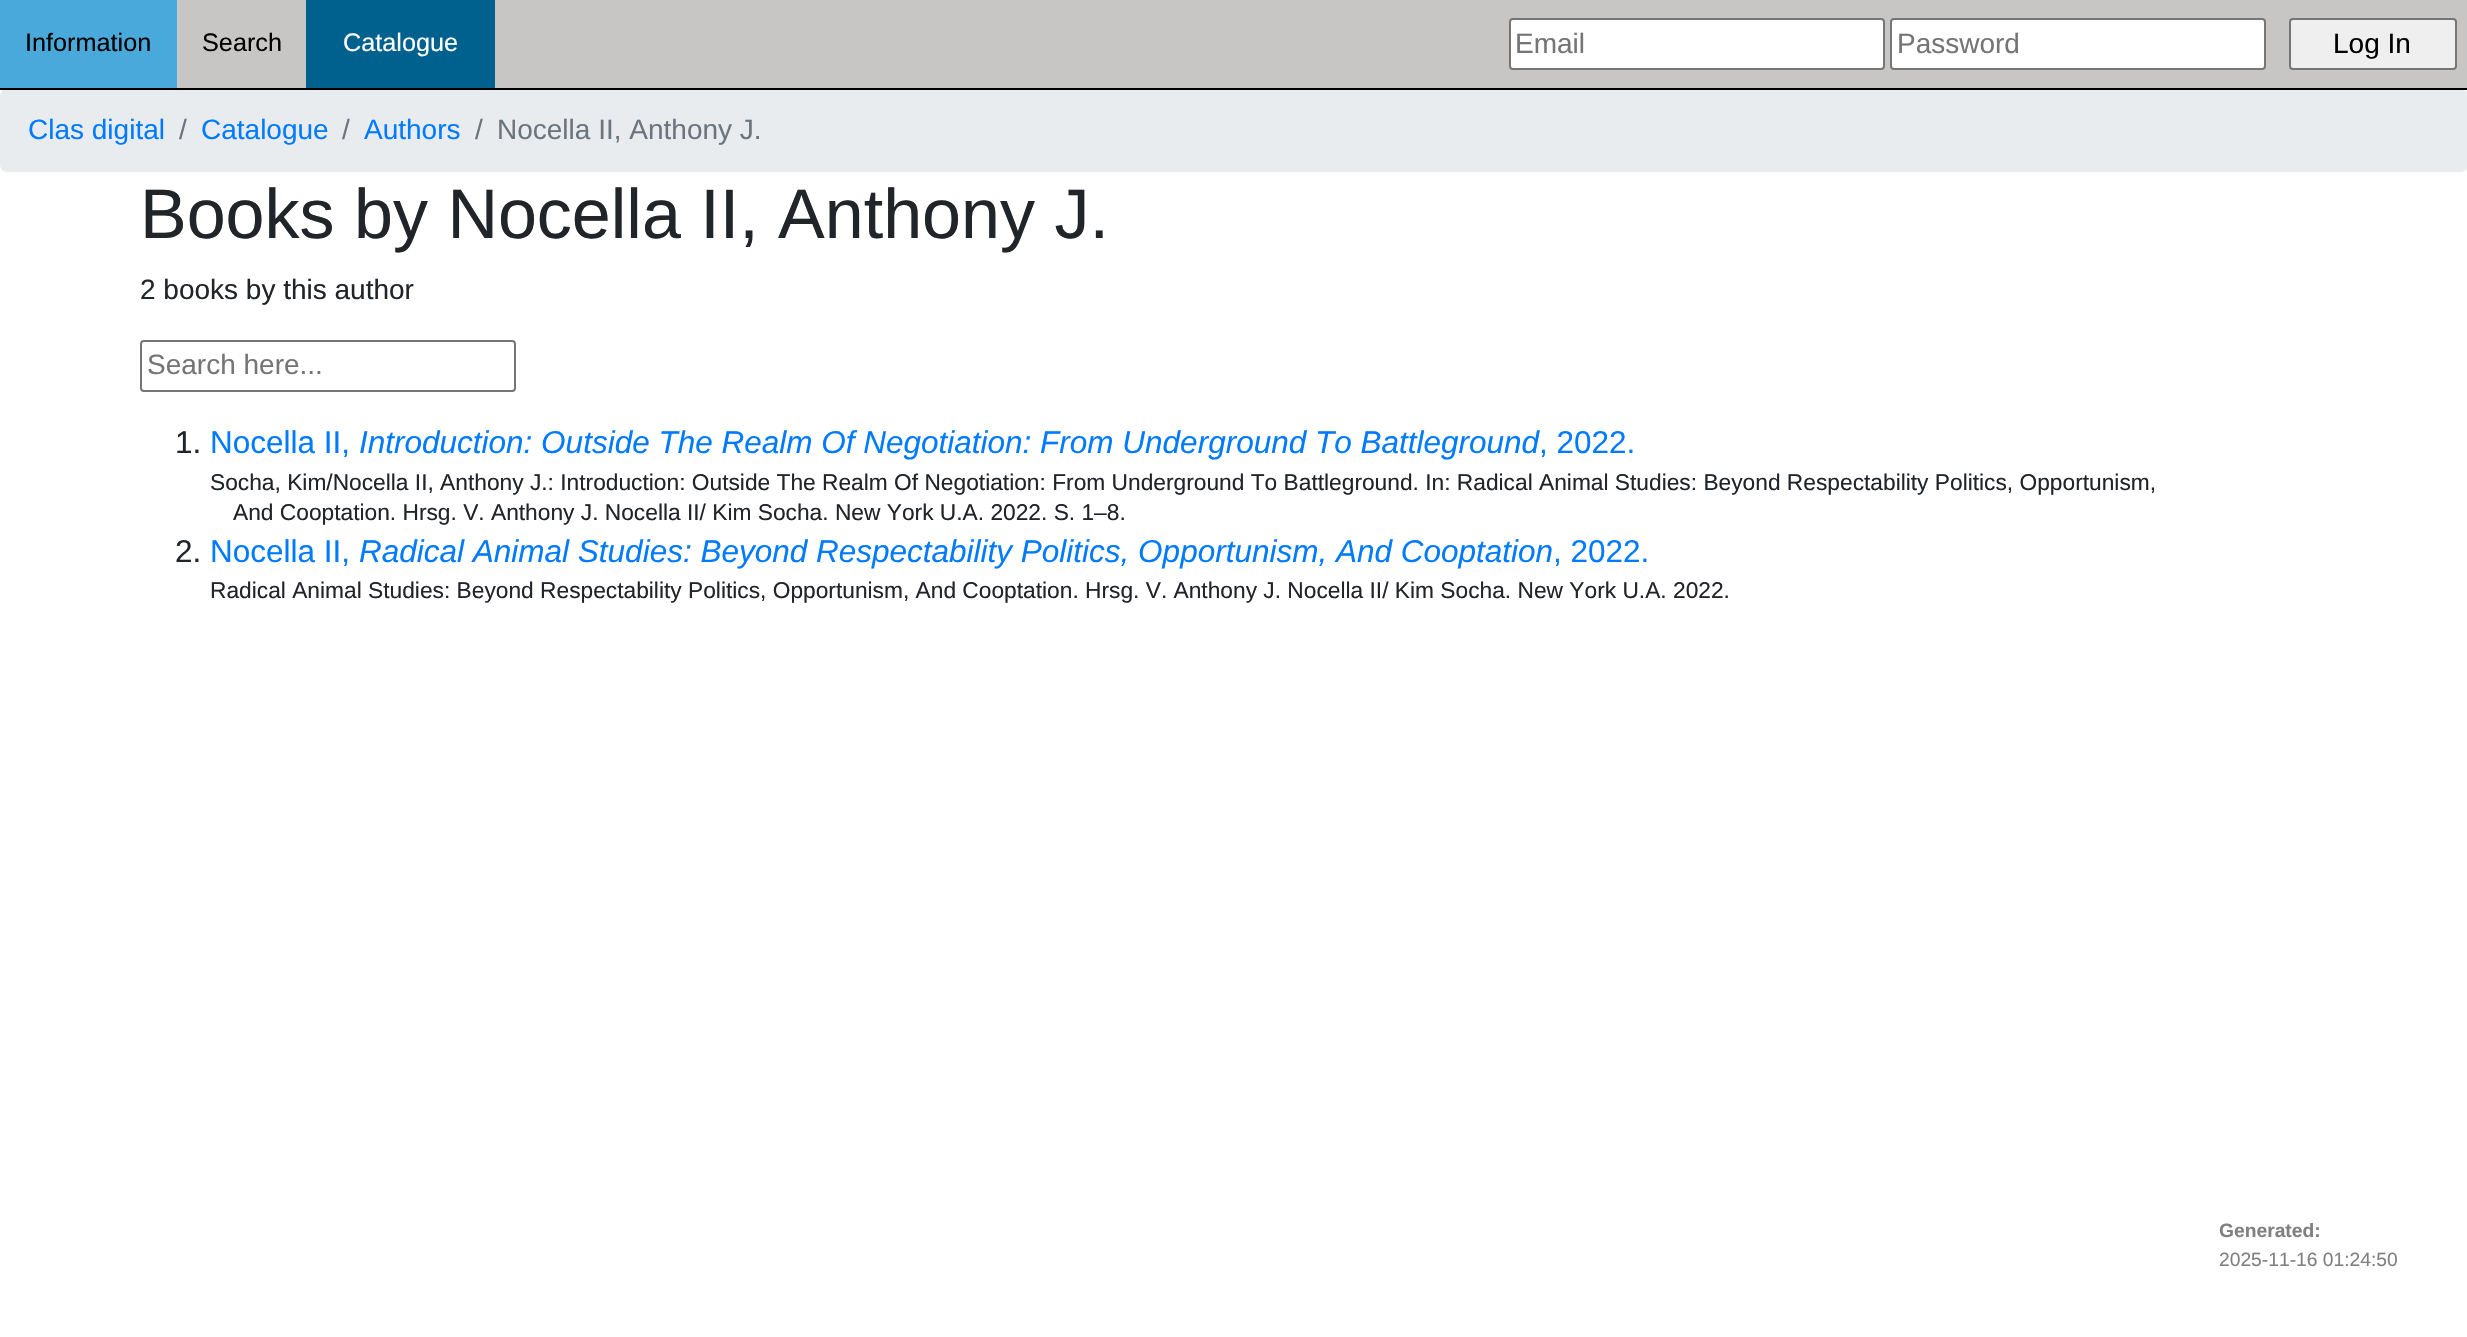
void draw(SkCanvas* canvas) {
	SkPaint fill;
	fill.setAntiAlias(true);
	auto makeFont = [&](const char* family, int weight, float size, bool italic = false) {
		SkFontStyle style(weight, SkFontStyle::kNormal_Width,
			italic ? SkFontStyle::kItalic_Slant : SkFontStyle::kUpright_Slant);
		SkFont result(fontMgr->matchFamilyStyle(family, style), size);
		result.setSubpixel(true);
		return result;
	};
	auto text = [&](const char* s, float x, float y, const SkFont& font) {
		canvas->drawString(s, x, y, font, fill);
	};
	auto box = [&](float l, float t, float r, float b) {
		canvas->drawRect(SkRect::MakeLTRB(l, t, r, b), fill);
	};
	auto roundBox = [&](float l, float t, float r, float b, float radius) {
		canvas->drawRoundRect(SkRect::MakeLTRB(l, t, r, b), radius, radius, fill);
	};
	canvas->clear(0xFFFFFFFF);
	fill.setColor(0xFFC8C6C5);
	box(177, 0, 2467, 88);
	fill.setColor(0xFFE9ECEF);
	roundBox(0, 89, 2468, 172, 7);
	fill.setColor(0xFF000000);
	box(0, 88, 2467, 90);
	fill.setColor(0xFF48A9DA);
	box(0, 0, 177, 88);
	fill.setColor(0xFF00618F);
	box(306, 0, 495, 88);
	fill.setColor(0xFFFFFFFF);
	canvas->drawRoundRect(SkRect::MakeLTRB(1510, 19, 1884, 69), 3, 3, fill);
	fill.setStyle(SkPaint::kStroke_Style);
	fill.setStrokeWidth(2);
	fill.setColor(0xFF767676);
	canvas->drawRoundRect(SkRect::MakeLTRB(1510, 19, 1884, 69), 3, 3, fill);
	fill.setStyle(SkPaint::kFill_Style);
	fill.setColor(0xFFFFFFFF);
	canvas->drawRoundRect(SkRect::MakeLTRB(1891, 19, 2265, 69), 3, 3, fill);
	fill.setStyle(SkPaint::kStroke_Style);
	fill.setColor(0xFF767676);
	canvas->drawRoundRect(SkRect::MakeLTRB(1891, 19, 2265, 69), 3, 3, fill);
	fill.setStyle(SkPaint::kFill_Style);
	fill.setColor(0xFFEFEFEF);
	canvas->drawRoundRect(SkRect::MakeLTRB(2290, 19, 2456, 69), 3, 3, fill);
	fill.setStyle(SkPaint::kStroke_Style);
	fill.setColor(0xFF767676);
	canvas->drawRoundRect(SkRect::MakeLTRB(2290, 19, 2456, 69), 3, 3, fill);
	canvas->drawRoundRect(SkRect::MakeLTRB(141, 341, 515, 391), 3, 3, fill);
	auto font1 = makeFont("Liberation Sans", 400, 25.25f);
	fill.setStyle(SkPaint::kFill_Style);
	fill.setColor(0xFF000000);
	text("Information", 25, 51, font1);
	text("Search", 202, 51, font1);
	fill.setColor(0xFFFFFFFF);
	text("Catalogue", 343, 51, font1);
	auto font2 = makeFont("Liberation Sans", 400, 28);
	fill.setColor(0xFF757575);
	text("Email", 1515, 53, font2);
	text("Password", 1897, 53, font2);
	fill.setColor(0xFF000000);
	text("Log In", 2333, 53, font2);
	auto font3 = makeFont("Liberation Sans", 700, 19.25f);
	fill.setColor(0xFF808080);
	text("Generated:", 2219, 1237, font3);
	auto font4 = makeFont("Liberation Sans", 400, 19.25f);
	text("2025-11-16 01:24:50", 2219, 1266, font4);
	fill.setColor(0xFF007BFF);
	text("Clas digital", 28, 139, font2);
	fill.setColor(0xFF6C757D);
	text("/", 179, 139, font2);
	fill.setColor(0xFF007BFF);
	text("Catalogue", 201, 139, font2);
	fill.setColor(0xFF6C757D);
	text("/", 342, 139, font2);
	fill.setColor(0xFF007BFF);
	text("Authors", 364, 139, font2);
	fill.setColor(0xFF6C757D);
	text("/", 475, 139, font2);
	text("Nocella II, Anthony J.", 497, 139, font2);
	auto font5 = makeFont("Liberation Sans", 400, 70);
	fill.setColor(0xFF212529);
	text("Books by Nocella II, Anthony J.", 140, 238, font5);
	text("2 books by this author", 140, 299, font2);
	fill.setColor(0xFF757575);
	text("Search here...", 147, 374, font2);
	auto font6 = makeFont("Liberation Sans", 400, 31.5f);
	fill.setColor(0xFF212529);
	text("1.", 175, 453, font6);
	fill.setColor(0xFF007BFF);
	text("Nocella II,", 210, 453, font6);
	auto font7 = makeFont("Liberation Sans", 400, 31.5f, true);
	text("Introduction: Outside The Realm Of Negotiation: From Underground To Battleground", 359, 453, font7);
	text(", 2022.", 1539, 453, font6);
	auto font8 = makeFont("Liberation Sans", 400, 22.75f);
	fill.setColor(0xFF212529);
	text("Socha, Kim/Nocella II, Anthony J.: Introduction: Outside The Realm Of Negotiation: From Underground To Battleground. In: Radical Animal Studies: Beyond Respectability Politics, Opportunism,", 210, 490, font8);
	text("And Cooptation. Hrsg. V. Anthony J. Nocella II/ Kim Socha. New York U.A. 2022. S. 1–8.", 233, 520, font8);
	text("2.", 175, 562, font6);
	fill.setColor(0xFF007BFF);
	text("Nocella II,", 210, 562, font6);
	text("Radical Animal Studies: Beyond Respectability Politics, Opportunism, And Cooptation", 359, 562, font7);
	text(", 2022.", 1553, 562, font6);
	fill.setColor(0xFF212529);
	text("Radical Animal Studies: Beyond Respectability Politics, Opportunism, And Cooptation. Hrsg. V. Anthony J. Nocella II/ Kim Socha. New York U.A. 2022.", 210, 598, font8);
}
